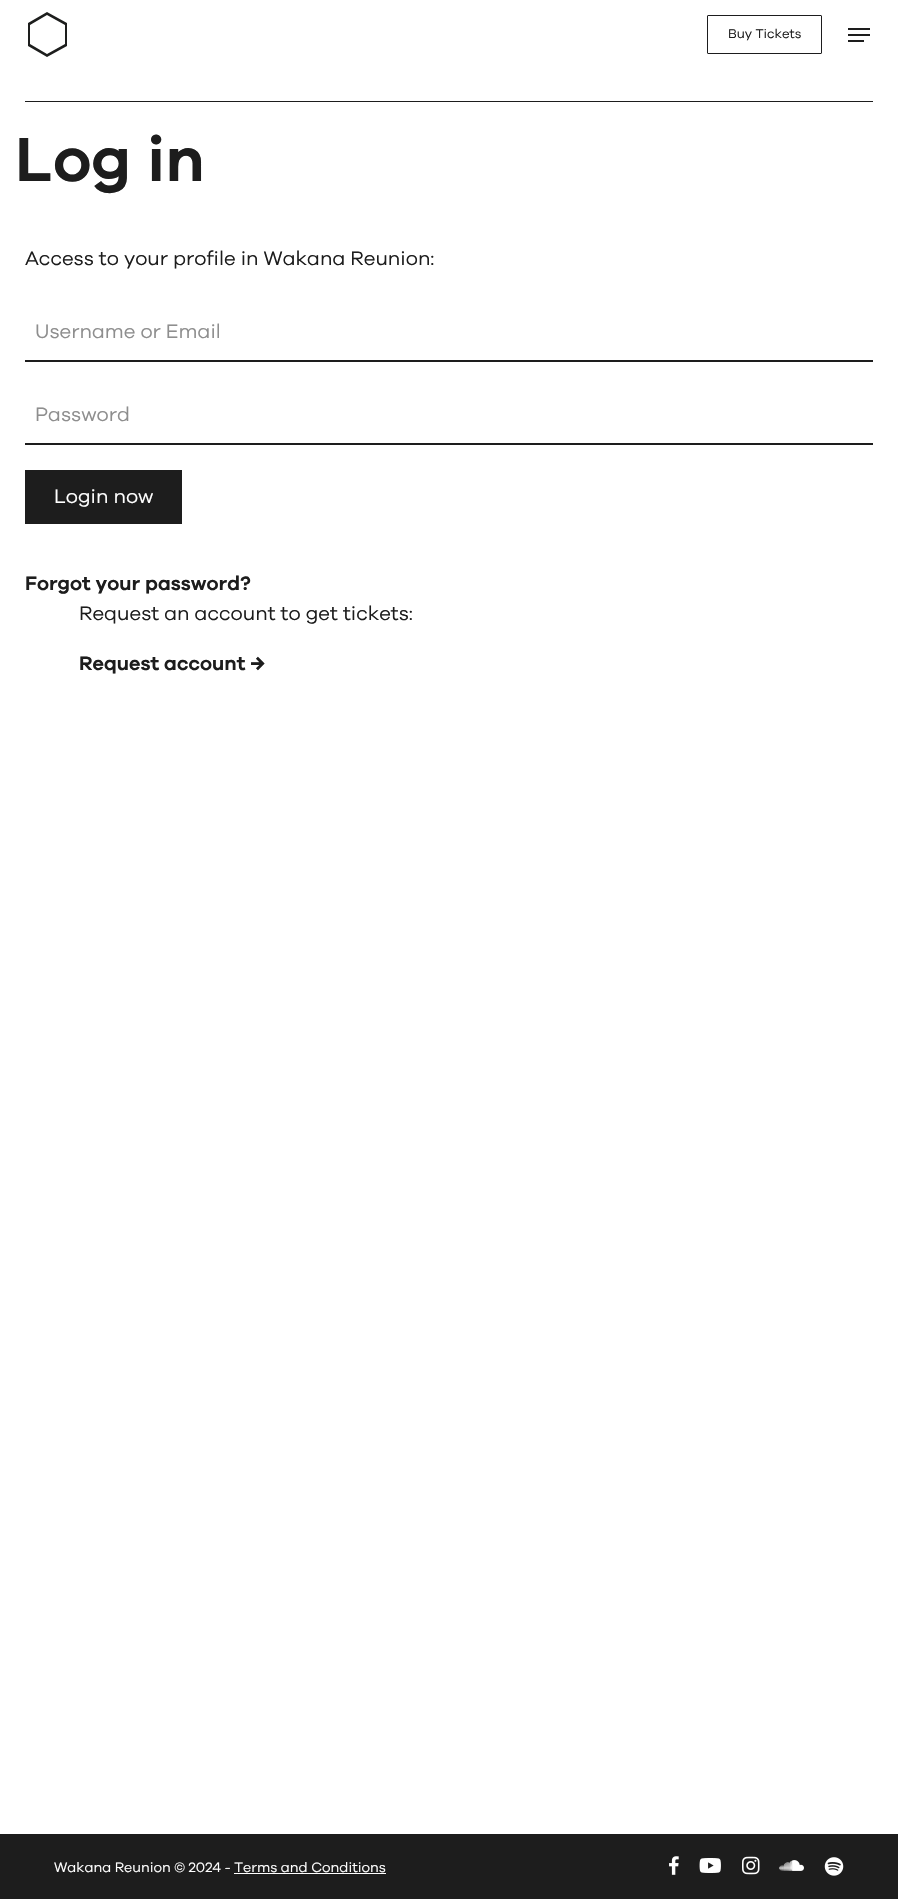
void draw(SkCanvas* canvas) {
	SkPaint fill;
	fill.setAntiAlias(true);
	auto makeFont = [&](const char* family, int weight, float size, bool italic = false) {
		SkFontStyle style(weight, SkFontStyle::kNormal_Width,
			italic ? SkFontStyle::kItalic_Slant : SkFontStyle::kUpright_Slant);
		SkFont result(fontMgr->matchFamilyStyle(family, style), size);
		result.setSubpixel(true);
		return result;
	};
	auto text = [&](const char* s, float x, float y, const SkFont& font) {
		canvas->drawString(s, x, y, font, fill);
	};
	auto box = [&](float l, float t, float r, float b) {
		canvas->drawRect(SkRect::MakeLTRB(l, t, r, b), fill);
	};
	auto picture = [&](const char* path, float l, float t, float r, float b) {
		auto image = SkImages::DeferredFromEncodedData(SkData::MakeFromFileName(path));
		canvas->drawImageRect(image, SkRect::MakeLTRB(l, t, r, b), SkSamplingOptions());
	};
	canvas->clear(0xFFFFFFFF);
	fill.setColor(0xFF1D1E1D);
	canvas->drawPath(SkPathBuilder().moveTo(47, 15).lineTo(65, 25).lineTo(65, 44).lineTo(47, 54).lineTo(30, 44).lineTo(30, 25).lineTo(47, 15).moveTo(47, 12).lineTo(28, 23).lineTo(28, 46).lineTo(47, 57).lineTo(67, 46).lineTo(67, 23).close().detach(), fill);
	fill.setStyle(SkPaint::kStroke_Style);
	fill.setStrokeWidth(1);
	fill.setColor(0xFF1D1D1E);
	canvas->drawRoundRect(SkRect::MakeLTRB(707.5f, 15.5f, 821.5f, 53.5f), 0.5f, 0.5f, fill);
	fill.setStyle(SkPaint::kFill_Style);
	fill.setColor(0xFF1D1D1D);
	box(848, 28, 870, 30);
	box(848, 40, 864, 42);
	box(848, 34, 870, 36);
	box(25, 101, 873, 102);
	box(25, 360, 873, 362);
	box(25, 443, 873, 445);
	box(25, 470, 182, 524);
	box(0, 1834, 898, 1899);
	fill.setColor(0xFFFFFFFF);
	box(234, 1873, 386, 1874);
	picture("image0.png", 669, 1856, 679, 1875);
	picture("image1.png", 699, 1858, 721, 1873);
	picture("image2.png", 742, 1856, 760, 1875);
	picture("image3.png", 779, 1860, 804, 1871);
	picture("image4.png", 824, 1857, 844, 1876);
	auto font1 = makeFont("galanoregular", 400, 13);
	fill.setColor(0xFF1D1D1D);
	text("Buy Tickets", 728, 38, font1);
	auto font2 = makeFont("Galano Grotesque", 600, 64);
	text("Log in", 15, 181, font2);
	auto font3 = makeFont("galanoregular", 400, 20);
	text("Access to your profile in Wakana Reunion:", 25, 265, font3);
	fill.setColor(0xFF8E8E8E);
	text("Username or Email", 35, 338, font3);
	text("Password", 35, 421, font3);
	fill.setColor(0xFFFFFFFF);
	text("Login now", 54, 503, font3);
	auto font4 = makeFont("Galano Grotesque", 600, 20);
	fill.setColor(0xFF1D1D1D);
	text("Forgot your password?", 25, 590, font4);
	text("Request an account to get tickets:", 79, 620, font3);
	text("Request account →", 79, 670, font4);
	auto font5 = makeFont("galanoregular", 400, 14);
	fill.setColor(0xFFFFFFFF);
	text("Wakana Reunion © 2024 - Terms and Conditions", 54, 1872, font5);
}
